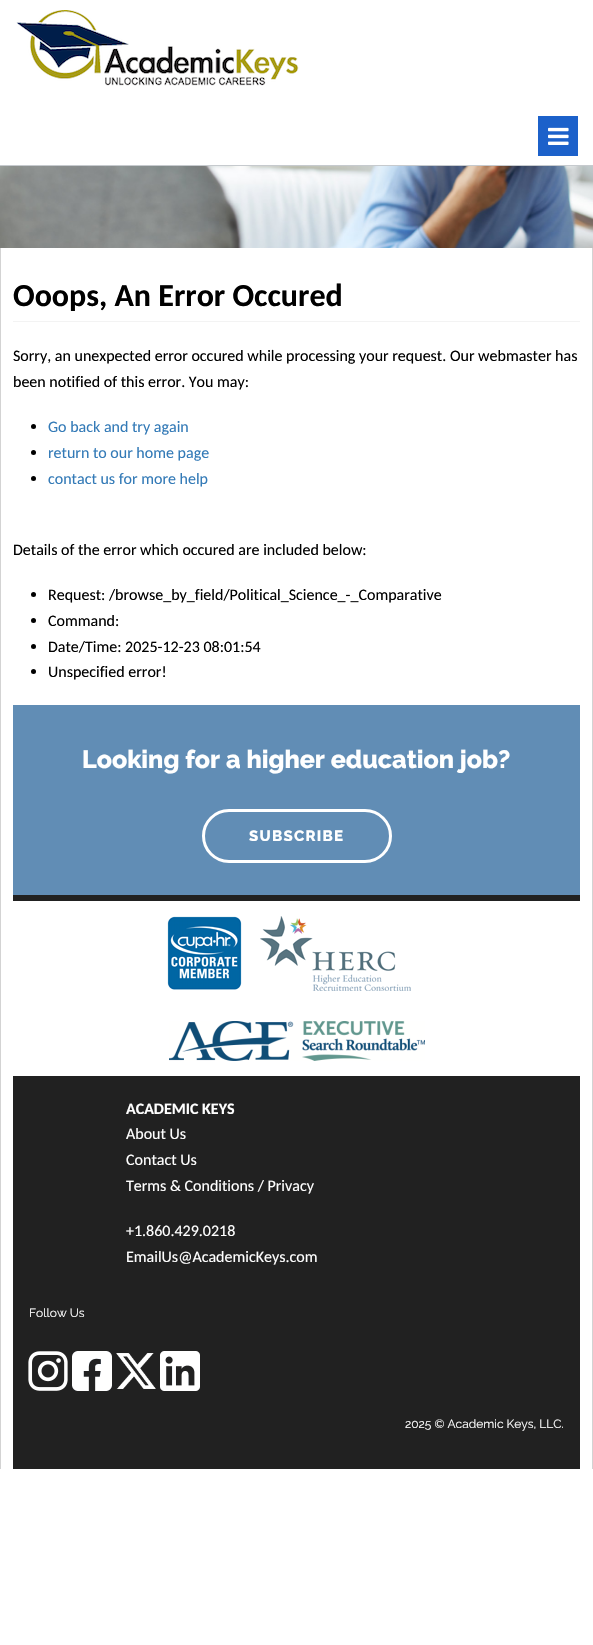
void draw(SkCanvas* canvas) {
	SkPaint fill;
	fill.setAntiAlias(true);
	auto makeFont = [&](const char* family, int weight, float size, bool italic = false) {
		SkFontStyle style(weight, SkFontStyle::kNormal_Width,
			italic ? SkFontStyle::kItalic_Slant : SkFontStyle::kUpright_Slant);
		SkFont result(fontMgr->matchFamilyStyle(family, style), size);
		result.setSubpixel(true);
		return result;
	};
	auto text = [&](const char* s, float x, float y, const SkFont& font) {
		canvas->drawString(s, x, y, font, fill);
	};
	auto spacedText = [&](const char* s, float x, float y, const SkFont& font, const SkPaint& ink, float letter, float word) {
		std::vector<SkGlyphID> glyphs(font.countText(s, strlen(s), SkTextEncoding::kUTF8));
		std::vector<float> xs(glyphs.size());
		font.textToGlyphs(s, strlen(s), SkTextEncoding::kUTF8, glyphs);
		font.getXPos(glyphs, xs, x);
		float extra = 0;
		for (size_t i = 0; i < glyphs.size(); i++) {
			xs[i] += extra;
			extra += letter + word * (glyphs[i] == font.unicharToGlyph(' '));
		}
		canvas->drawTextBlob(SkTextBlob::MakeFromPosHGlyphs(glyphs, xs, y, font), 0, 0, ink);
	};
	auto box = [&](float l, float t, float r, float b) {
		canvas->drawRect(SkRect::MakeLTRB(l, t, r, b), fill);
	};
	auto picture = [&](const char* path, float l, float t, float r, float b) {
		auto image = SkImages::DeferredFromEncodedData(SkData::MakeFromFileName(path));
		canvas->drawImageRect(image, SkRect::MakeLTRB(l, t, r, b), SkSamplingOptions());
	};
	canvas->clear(0xFFFFFFFF);
	fill.setColor(0xFFC6CACE);
	box(0, 165, 593, 166);
	picture("image0.png", 16, 10, 299, 86);
	fill.setColor(0xFF1C61CA);
	box(538, 116, 578, 156);
	picture("image1.png", 548, 127, 569, 145);
	picture("image2.png", 0, 166, 593, 248);
	fill.setColor(0xFFD3D3D3);
	box(592, 248, 593, 1469);
	box(0, 248, 1, 1469);
	fill.setColor(0xFFF3F3F3);
	box(13, 321, 580, 322);
	fill.setColor(0xFF000000);
	canvas->drawCircle(33.5f, 426.5f, 2.5f, fill);
	canvas->drawCircle(33.5f, 452.5f, 2.5f, fill);
	canvas->drawCircle(33.5f, 478.5f, 2.5f, fill);
	canvas->drawCircle(33.5f, 594.5f, 2.5f, fill);
	canvas->drawCircle(33.5f, 620.5f, 2.5f, fill);
	canvas->drawCircle(33.5f, 646.5f, 2.5f, fill);
	canvas->drawCircle(33.5f, 671.5f, 2.5f, fill);
	fill.setColor(0xFF618DB5);
	box(13, 705, 580, 895);
	fill.setStyle(SkPaint::kStroke_Style);
	fill.setStrokeWidth(3);
	fill.setColor(0xFFFFFFFF);
	canvas->drawRoundRect(SkRect::MakeLTRB(203.5f, 810.5f, 390.5f, 861.5f), 25.5f, 25.5f, fill);
	fill.setStyle(SkPaint::kFill_Style);
	fill.setColor(0xFF212121);
	box(13, 895, 580, 901);
	picture("image3.png", 167, 916, 242, 990);
	picture("image4.png", 260, 916, 411, 991);
	picture("image5.png", 169, 1021, 425, 1061);
	box(13, 1076, 580, 1469);
	picture("image6.png", 28, 1351, 68, 1391);
	picture("image7.png", 72, 1351, 112, 1391);
	picture("image8.png", 116, 1353, 156, 1389);
	picture("image9.png", 160, 1351, 200, 1391);
	auto font1 = makeFont("Carlito", 700, 32);
	fill.setColor(0xFF000000);
	text("Ooops, An Error Occured", 13, 306, font1);
	auto font2 = makeFont("Carlito", 400, 16);
	text("Sorry, an unexpected error occured while processing your request. Our webmaster has", 13, 361, font2);
	text("been notified of this error. You may:", 13, 387, font2);
	fill.setColor(0xFF337AB7);
	text("Go back and try again", 48, 432, font2);
	text("return to our home page", 48, 458, font2);
	text("contact us for more help", 48, 484, font2);
	fill.setColor(0xFF000000);
	text("Details of the error which occured are included below:", 13, 555, font2);
	text("Request: /browse_by_field/Political_Science_-_Comparative", 48, 600, font2);
	text("Command:", 48, 626, font2);
	text("Date/Time: 2025-12-23 08:01:54", 48, 652, font2);
	text("Unspecified error!", 48, 677, font2);
	auto font3 = makeFont("Raleway", 800, 25);
	fill.setColor(0xFFFFFFFF);
	text("Looking for a higher education job?", 82, 768, font3);
	auto font4 = makeFont("Raleway", 800, 15);
	spacedText("SUBSCRIBE", 249, 841, font4, fill, 1.25f, 0);
	auto font5 = makeFont("Carlito", 700, 16);
	text("ACADEMIC KEYS", 126, 1114, font5);
	text("About Us", 126, 1139, font2);
	text("Contact Us", 126, 1165, font2);
	text("Terms & Conditions / Privacy", 126, 1191, font2);
	text("+1.860.429.0218", 126, 1236, font2);
	text("EmailUs@AcademicKeys.com", 126, 1262, font2);
	auto font6 = makeFont("Raleway", 400, 12);
	text("Follow Us", 29, 1317, font6);
	text("2025 © Academic Keys, LLC.", 405, 1428, font6);
}
